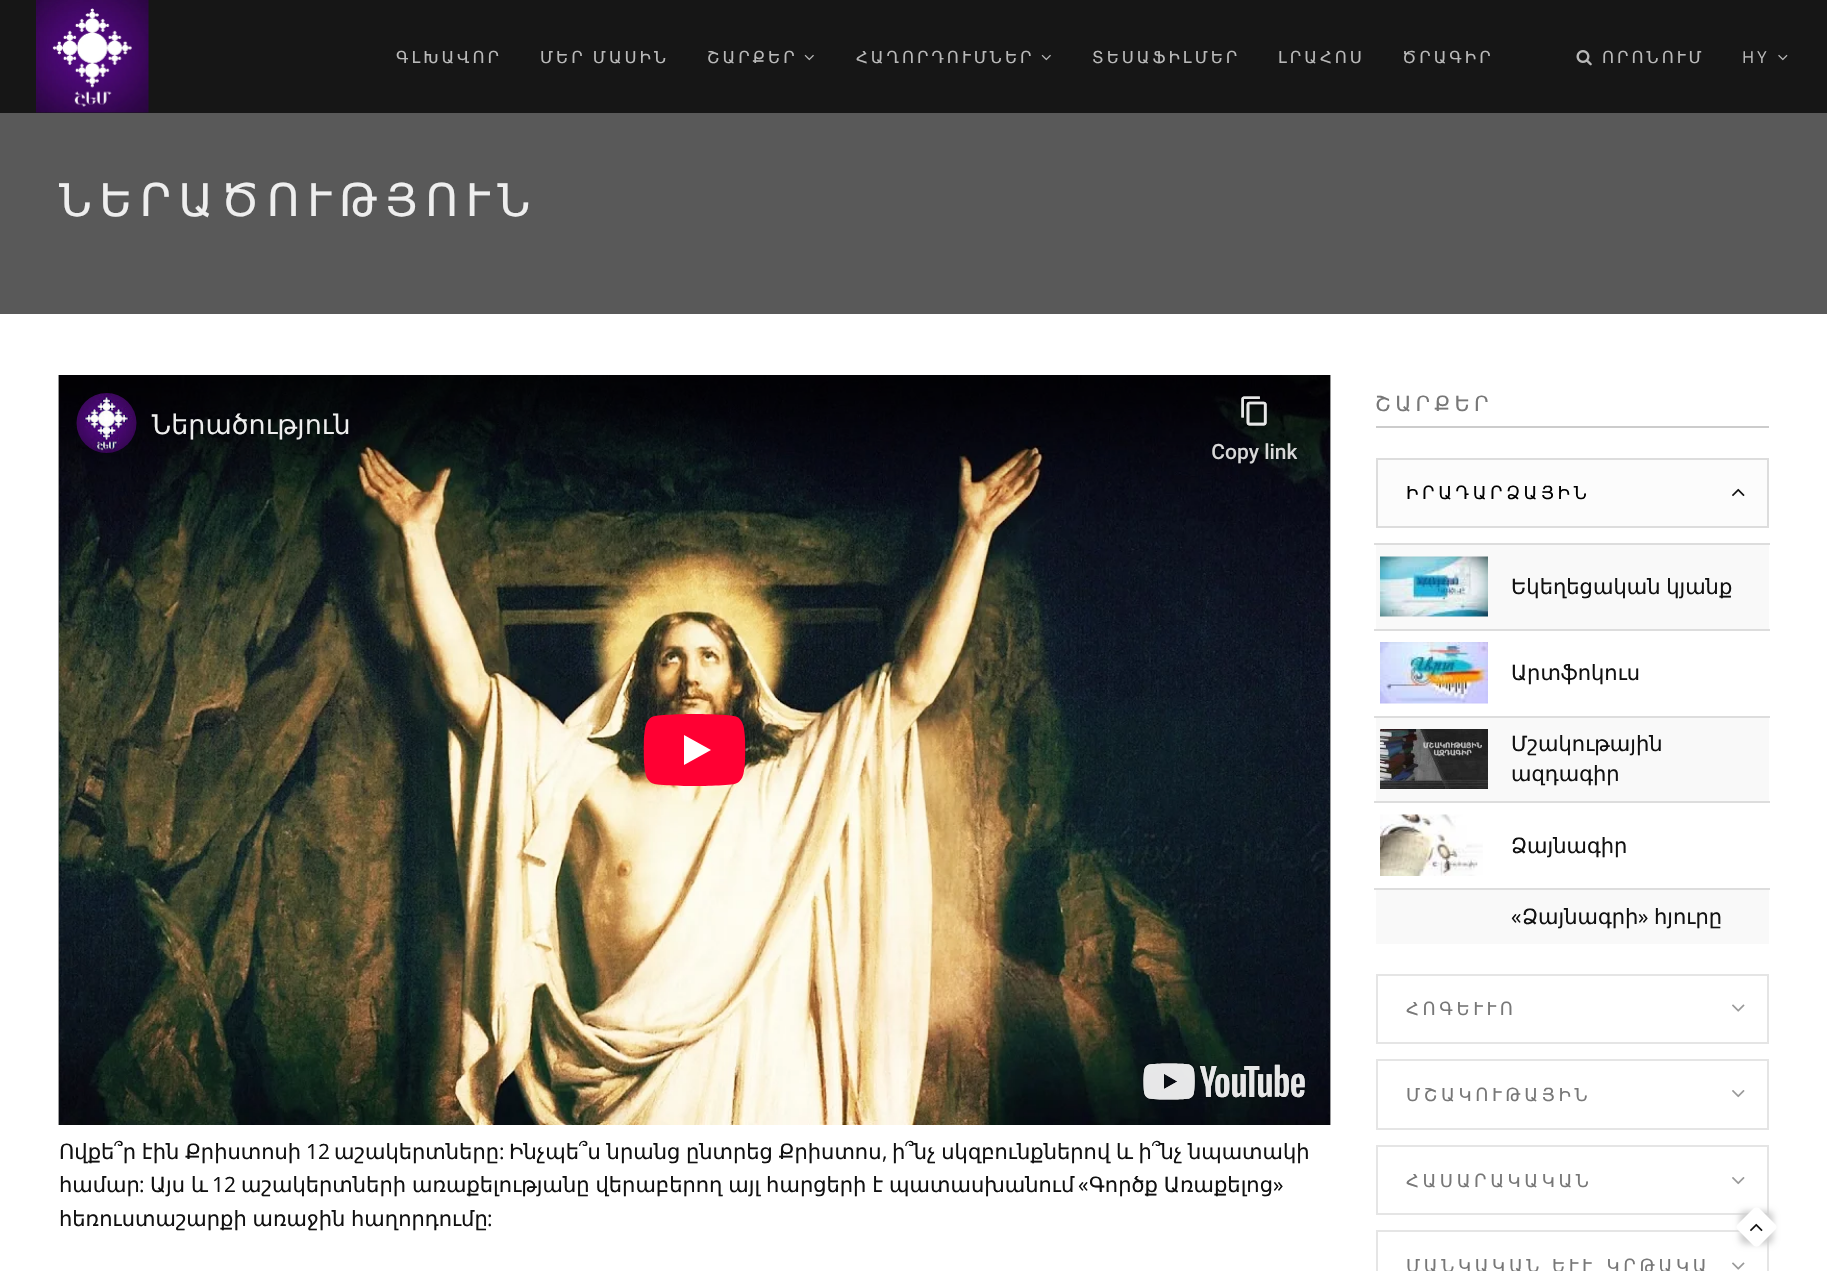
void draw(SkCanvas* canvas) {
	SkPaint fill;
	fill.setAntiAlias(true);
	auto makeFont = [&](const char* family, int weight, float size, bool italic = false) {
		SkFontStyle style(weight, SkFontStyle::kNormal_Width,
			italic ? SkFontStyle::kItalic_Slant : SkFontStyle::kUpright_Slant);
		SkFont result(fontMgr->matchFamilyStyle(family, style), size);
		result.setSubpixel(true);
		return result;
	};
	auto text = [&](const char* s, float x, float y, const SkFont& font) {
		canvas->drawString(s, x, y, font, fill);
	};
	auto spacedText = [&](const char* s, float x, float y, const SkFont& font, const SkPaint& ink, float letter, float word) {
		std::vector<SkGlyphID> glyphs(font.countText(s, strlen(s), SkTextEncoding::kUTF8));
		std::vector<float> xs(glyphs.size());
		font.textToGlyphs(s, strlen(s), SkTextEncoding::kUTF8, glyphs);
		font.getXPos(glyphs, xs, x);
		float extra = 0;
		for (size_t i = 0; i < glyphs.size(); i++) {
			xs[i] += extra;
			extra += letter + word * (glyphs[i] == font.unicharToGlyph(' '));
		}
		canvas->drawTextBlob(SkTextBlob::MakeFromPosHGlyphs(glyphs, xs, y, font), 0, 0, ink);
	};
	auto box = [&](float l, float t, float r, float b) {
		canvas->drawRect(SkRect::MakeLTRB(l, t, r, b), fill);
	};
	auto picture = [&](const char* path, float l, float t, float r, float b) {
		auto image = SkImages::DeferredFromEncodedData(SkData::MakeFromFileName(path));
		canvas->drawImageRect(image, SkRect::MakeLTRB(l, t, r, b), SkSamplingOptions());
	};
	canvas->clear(0xFFFFFFFF);
	fill.setColor(0xFF161616);
	box(0, 0, 1827, 113);
	picture("image0.png", 36, 0, 149, 113);
	picture("image1.png", 804, 54, 814, 61);
	picture("image1.png", 1041, 54, 1051, 61);
	picture("image2.png", 1576, 50, 1592, 66);
	picture("image3.png", 1778, 54, 1788, 61);
	fill.setColor(0xFF595959);
	box(0, 113, 1827, 314);
	picture("image4.png", 58, 375, 1331, 1125);
	fill.setColor(0xFFCCCCCC);
	box(1376, 426, 1769, 428);
	fill.setColor(0xFFFCFCFC);
	canvas->drawRect(SkRect::MakeLTRB(1377, 459, 1768, 527), fill);
	fill.setStyle(SkPaint::kStroke_Style);
	fill.setStrokeWidth(2);
	fill.setColor(0xFFDDDDDD);
	canvas->drawRect(SkRect::MakeLTRB(1377, 459, 1768, 527), fill);
	picture("image5.png", 1732, 488, 1745, 497);
	fill.setStyle(SkPaint::kFill_Style);
	fill.setColor(0xFFF9F9F9);
	box(1376, 545, 1769, 629);
	picture("image6.png", 1380, 556, 1488, 617);
	fill.setColor(0xFFDDDDDD);
	box(1374, 543, 1770, 545);
	picture("image7.png", 1380, 642, 1488, 704);
	box(1374, 629, 1770, 631);
	fill.setColor(0xFFF9F9F9);
	box(1376, 718, 1769, 801);
	picture("image8.png", 1380, 729, 1488, 789);
	fill.setColor(0xFFDDDDDD);
	box(1374, 716, 1770, 718);
	picture("image9.png", 1380, 814, 1483, 876);
	box(1374, 801, 1770, 803);
	fill.setColor(0xFFF9F9F9);
	box(1376, 890, 1769, 944);
	fill.setColor(0xFFDDDDDD);
	box(1374, 888, 1770, 890);
	fill.setStyle(SkPaint::kStroke_Style);
	fill.setColor(0xFFE5E5E5);
	canvas->drawRect(SkRect::MakeLTRB(1377, 975, 1768, 1043), fill);
	picture("image10.png", 1732, 1004, 1745, 1012);
	canvas->drawRect(SkRect::MakeLTRB(1377, 1060, 1768, 1129), fill);
	picture("image11.png", 1732, 1090, 1745, 1098);
	canvas->drawRect(SkRect::MakeLTRB(1377, 1146, 1768, 1214), fill);
	picture("image11.png", 1732, 1177, 1745, 1185);
	canvas->drawRect(SkRect::MakeLTRB(1377, 1231, 1768, 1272), fill);
	picture("image10.png", 1732, 1262, 1745, 1270);
	fill.setStyle(SkPaint::kFill_Style);
	fill.setColor(0xFFCDCDCD);
	fill.setMaskFilter(SkMaskFilter::MakeBlur(kNormal_SkBlurStyle, 3));
	canvas->drawRoundRect(SkRect::MakeLTRB(1740, 1211, 1773, 1244), 5, 5, fill);
	fill.setMaskFilter(nullptr);
	fill.setColor(0xFFFFFFFF);
	canvas->drawPath(SkPathBuilder().moveTo(1759, 1208).lineTo(1776, 1225).cubicTo(1777, 1226, 1777, 1228, 1776, 1229).lineTo(1759, 1246).cubicTo(1757, 1247, 1756, 1247, 1754, 1246).lineTo(1737, 1229).cubicTo(1736, 1228, 1736, 1226, 1737, 1225).lineTo(1754, 1208).cubicTo(1756, 1207, 1757, 1207, 1759, 1208).close().detach(), fill);
	picture("image12.png", 1750, 1223, 1763, 1232);
	auto font1 = makeFont("DejaVu Sans", 400, 16.5f);
	fill.setColor(0xFFB9B9B9);
	spacedText("ԳԼԽԱՎՈՐ", 396, 63, font1, fill, 3, 0);
	spacedText("ՄԵՐ ՄԱՍԻՆ", 540, 63, font1, fill, 3, -1);
	spacedText("ՇԱՐՔԵՐ", 707, 63, font1, fill, 3, 0);
	spacedText("ՀԱՂՈՐԴՈՒՄՆԵՐ", 856, 63, font1, fill, 3, 0);
	spacedText("ՏԵՍԱՖԻԼՄԵՐ", 1092, 63, font1, fill, 3, 0);
	spacedText("ԼՐԱՀՈՍ", 1278, 63, font1, fill, 3, 0);
	spacedText("ԾՐԱԳԻՐ", 1402, 63, font1, fill, 3, 0);
	spacedText("ՈՐՈՆՈՒՄ", 1602, 63, font1, fill, 3, 0);
	auto font2 = makeFont("Open Sans", 400, 16.5f);
	spacedText("HY", 1742, 63, font2, fill, 3, 0);
	auto font3 = makeFont("DejaVu Sans", 400, 45);
	fill.setColor(0xFFEEEEEE);
	spacedText("ՆԵՐԱԾՈՒԹՅՈՒՆ", 59, 216, font3, fill, 7.5f, 0);
	auto font4 = makeFont("DejaVu Sans", 400, 21);
	fill.setColor(0xFF111111);
	spacedText("Ովքե՞ր էին Քրիստոսի", 59, 1159, font4, fill, 0, -1);
	auto font5 = makeFont("Open Sans", 400, 21);
	text("12", 306, 1159, font5);
	text("աշակերտները", 334, 1159, font4);
	text(":", 499, 1159, font5);
	spacedText("Ինչպե՞ս նրանց ընտրեց Քրիստոս", 509, 1159, font4, fill, 0, -1);
	text(",", 882, 1159, font5);
	spacedText("ի՞նչ սկզբունքներով և ի՞նչ նպատակի", 892, 1159, font4, fill, 0, -1);
	text("համար", 59, 1192, font4);
	text(":", 139, 1192, font5);
	spacedText("Այս և", 150, 1192, font4, fill, 0, -0.75f);
	text("12", 212, 1192, font5);
	spacedText("աշակերտների առաքելությանը վերաբերող այլ հարցերի է պատասխանում", 241, 1192, font4, fill, 0, -0.75f);
	text("«", 1078, 1192, font5);
	spacedText("Գործք Առաքելոց", 1089, 1192, font4, fill, 0, -0.75f);
	text("»", 1273, 1192, font5);
	spacedText("հեռուստաշարքի առաջին հաղորդումը", 59, 1226, font4, fill, 0, -1);
	text(":", 487, 1226, font5);
	fill.setColor(0xFF777777);
	spacedText("ՇԱՐՔԵՐ", 1375, 411, font4, fill, 4.25f, 0);
	auto font6 = makeFont("DejaVu Sans", 400, 18);
	fill.setColor(0xFF000000);
	spacedText("ԻՐԱԴԱՐՁԱՅԻՆ", 1406, 499, font6, fill, 3.6f, 0);
	fill.setColor(0xFF111111);
	spacedText("Եկեղեցական կյանք", 1511, 594, font4, fill, 0, -1);
	text("Արտֆոկուս", 1511, 680, font4);
	text("Մշակութային", 1511, 751, font4);
	text("ազդագիր", 1511, 781, font4);
	text("Ձայնագիր", 1511, 853, font4);
	text("«", 1511, 924, font5);
	text("Ձայնագրի", 1522, 924, font4);
	text("»", 1638, 924, font5);
	text("հյուրը", 1654, 924, font4);
	fill.setColor(0xFF777777);
	spacedText("ՀՈԳԵՒՒՈ", 1406, 1015, font6, fill, 3.6f, 0);
	spacedText("ՄՇԱԿՈՒԹԱՅԻՆ", 1406, 1101, font6, fill, 3.6f, 0);
	spacedText("ՀԱՍԱՐԱԿԱԿԱՆ", 1406, 1187, font6, fill, 3.6f, 0);
	spacedText("ՄԱՆԿԱԿԱՆ", 1406, 1272, font6, fill, 3.6f, 0);
	spacedText("ԵՒ", 1552, 1272, font6, fill, 3.6f, 0);
	spacedText("Ւ ԿՐԹԱԿԱ", 1582, 1272, font6, fill, 3.6f, 2);
}
